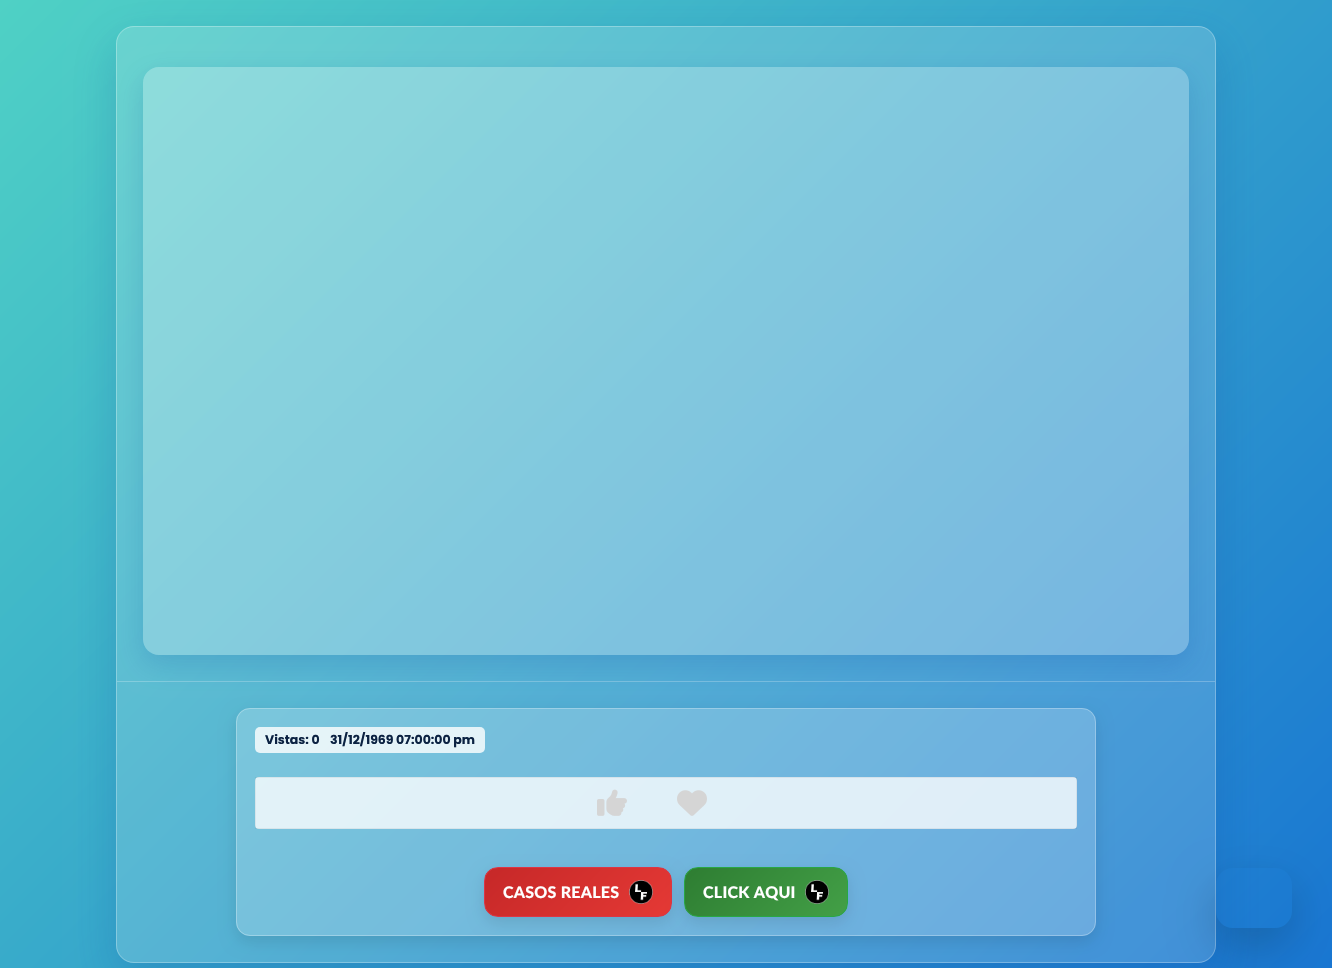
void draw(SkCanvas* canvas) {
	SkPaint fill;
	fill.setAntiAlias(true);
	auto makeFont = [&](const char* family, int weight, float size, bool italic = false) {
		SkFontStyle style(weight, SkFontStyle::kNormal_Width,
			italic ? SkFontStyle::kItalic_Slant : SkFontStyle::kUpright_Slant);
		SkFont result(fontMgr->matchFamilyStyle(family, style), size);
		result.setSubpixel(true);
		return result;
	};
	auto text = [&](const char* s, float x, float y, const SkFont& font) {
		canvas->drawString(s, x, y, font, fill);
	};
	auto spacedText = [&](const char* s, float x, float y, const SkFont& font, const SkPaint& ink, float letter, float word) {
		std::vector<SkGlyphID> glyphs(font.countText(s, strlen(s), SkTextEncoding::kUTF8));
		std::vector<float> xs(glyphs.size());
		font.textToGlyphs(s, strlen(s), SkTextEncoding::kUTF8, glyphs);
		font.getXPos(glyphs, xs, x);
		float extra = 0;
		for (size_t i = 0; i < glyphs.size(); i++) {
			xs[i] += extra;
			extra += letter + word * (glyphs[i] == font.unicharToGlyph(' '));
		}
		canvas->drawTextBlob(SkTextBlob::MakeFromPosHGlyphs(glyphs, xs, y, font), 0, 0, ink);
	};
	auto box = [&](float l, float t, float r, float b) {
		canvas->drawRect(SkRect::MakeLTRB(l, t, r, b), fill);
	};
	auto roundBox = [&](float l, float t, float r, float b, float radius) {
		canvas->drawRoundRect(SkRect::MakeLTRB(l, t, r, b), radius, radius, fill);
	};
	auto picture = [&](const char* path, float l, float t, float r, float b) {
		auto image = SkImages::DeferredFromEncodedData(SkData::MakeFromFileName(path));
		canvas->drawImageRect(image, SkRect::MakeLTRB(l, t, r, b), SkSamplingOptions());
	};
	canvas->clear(0xFFFFFFFF);
	{
		const SkColor colors[] = {0xFF4FD1C5, 0xFF1976D2};
		const float stops[] = {0, 1};
		const SkPoint ends[] = {{91, -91}, {1241, 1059}};
		fill.setShader(SkGradientShader::MakeLinear(ends, colors, stops, 2, SkTileMode::kClamp));
		fill.setAlpha(255);
	}
	box(0, 0, 1332, 968);
	canvas->save();
	canvas->clipPath(SkPathBuilder(SkPathFillType::kEvenOdd).moveTo(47, 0).lineTo(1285, 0).lineTo(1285, 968).lineTo(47, 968).close().moveTo(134, 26).lineTo(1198, 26).cubicTo(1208, 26, 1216, 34, 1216, 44).lineTo(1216, 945).cubicTo(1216, 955, 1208, 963, 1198, 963).lineTo(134, 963).cubicTo(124, 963, 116, 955, 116, 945).lineTo(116, 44).cubicTo(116, 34, 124, 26, 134, 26).close().detach(), true);
	fill.setShader(nullptr);
	fill.setColor(0x380D47A1);
	fill.setMaskFilter(SkMaskFilter::MakeBlur(kNormal_SkBlurStyle, 22.5f));
	canvas->drawRoundRect(SkRect::MakeLTRB(116, 44, 1216, 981), 18, 18, fill);
	fill.setMaskFilter(nullptr);
	canvas->restore();
	fill.setColor(0x29FFFFFF);
	roundBox(116, 26, 1216, 963, 18);
	fill.setStyle(SkPaint::kStroke_Style);
	fill.setStrokeWidth(1);
	fill.setColor(0x47FFFFFF);
	canvas->drawRoundRect(SkRect::MakeLTRB(116.5f, 26.5f, 1215.5f, 962.5f), 17.5f, 17.5f, fill);
	fill.setStyle(SkPaint::kFill_Style);
	fill.setColor(0x3DFFFFFF);
	box(117, 681, 1215, 682);
	canvas->save();
	canvas->clipPath(SkPathBuilder(SkPathFillType::kEvenOdd).moveTo(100, 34).lineTo(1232, 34).lineTo(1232, 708).lineTo(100, 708).close().moveTo(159, 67).lineTo(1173, 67).cubicTo(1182, 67, 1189, 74, 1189, 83).lineTo(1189, 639).cubicTo(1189, 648, 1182, 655, 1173, 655).lineTo(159, 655).cubicTo(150, 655, 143, 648, 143, 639).lineTo(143, 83).cubicTo(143, 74, 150, 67, 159, 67).close().detach(), true);
	fill.setColor(0x2E0D47A1);
	fill.setMaskFilter(SkMaskFilter::MakeBlur(kNormal_SkBlurStyle, 14));
	canvas->drawRoundRect(SkRect::MakeLTRB(143, 77, 1189, 665), 16, 16, fill);
	fill.setMaskFilter(nullptr);
	canvas->restore();
	fill.setColor(0x40FFFFFF);
	roundBox(143, 67, 1189, 655, 16);
	canvas->save();
	canvas->clipPath(SkPathBuilder(SkPathFillType::kEvenOdd).moveTo(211, 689).lineTo(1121, 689).lineTo(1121, 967).lineTo(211, 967).close().moveTo(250, 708).lineTo(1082, 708).cubicTo(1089.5f, 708, 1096, 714.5f, 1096, 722).lineTo(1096, 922).cubicTo(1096, 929.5f, 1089.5f, 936, 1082, 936).lineTo(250, 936).cubicTo(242.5f, 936, 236, 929.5f, 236, 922).lineTo(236, 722).cubicTo(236, 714.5f, 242.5f, 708, 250, 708).close().detach(), true);
	fill.setColor(0x1A000000);
	fill.setMaskFilter(SkMaskFilter::MakeBlur(kNormal_SkBlurStyle, 8));
	canvas->drawRoundRect(SkRect::MakeLTRB(236, 714, 1096, 942), 14, 14, fill);
	fill.setMaskFilter(nullptr);
	canvas->restore();
	fill.setColor(0x33FFFFFF);
	roundBox(236, 708, 1096, 936, 14);
	fill.setStyle(SkPaint::kStroke_Style);
	fill.setColor(0x47FFFFFF);
	canvas->drawRoundRect(SkRect::MakeLTRB(236.5f, 708.5f, 1095.5f, 935.5f), 13.5f, 13.5f, fill);
	fill.setStyle(SkPaint::kFill_Style);
	fill.setColor(0xCCFFFFFF);
	roundBox(255, 727, 485, 753, 5);
	fill.setColor(0xC7FFFFFF);
	roundBox(255, 777, 1077, 829, 4);
	fill.setStyle(SkPaint::kStroke_Style);
	fill.setColor(0x0D000000);
	canvas->drawRect(SkRect::MakeLTRB(255.5f, 777.5f, 1076.5f, 828.5f), fill);
	picture("image0.png", 597, 789, 627, 816);
	picture("image1.png", 677, 790, 707, 816);
	fill.setStyle(SkPaint::kFill_Style);
	fill.setColor(0x1A000000);
	fill.setMaskFilter(SkMaskFilter::MakeBlur(kNormal_SkBlurStyle, 8));
	canvas->drawRoundRect(SkRect::MakeLTRB(484, 873, 672, 923), 14, 14, fill);
	fill.setMaskFilter(nullptr);
	canvas->save();
	canvas->clipPath(SkPathBuilder().moveTo(498, 867).lineTo(658, 867).cubicTo(665.5f, 867, 672, 873.5f, 672, 881).lineTo(672, 903).cubicTo(672, 910.5f, 665.5f, 917, 658, 917).lineTo(498, 917).cubicTo(490.5f, 917, 484, 910.5f, 484, 903).lineTo(484, 881).cubicTo(484, 873.5f, 490.5f, 867, 498, 867).close().detach(), true);
	{
		const SkColor colors[] = {0xFFC62828, 0xFFE53935};
		const float stops[] = {0, 1};
		const SkPoint ends[] = {{520, 834}, {637, 951}};
		fill.setShader(SkGradientShader::MakeLinear(ends, colors, stops, 2, SkTileMode::kClamp));
		fill.setAlpha(255);
	}
	box(485, 868, 671, 916);
	canvas->restore();
	fill.setStyle(SkPaint::kStroke_Style);
	fill.setShader(nullptr);
	fill.setColor(0xFFDC3545);
	canvas->drawRoundRect(SkRect::MakeLTRB(484.5f, 867.5f, 671.5f, 916.5f), 13.5f, 13.5f, fill);
	picture("image2.png", 629, 880, 653, 904);
	fill.setStyle(SkPaint::kFill_Style);
	fill.setColor(0x1A000000);
	fill.setMaskFilter(SkMaskFilter::MakeBlur(kNormal_SkBlurStyle, 8));
	canvas->drawRoundRect(SkRect::MakeLTRB(684, 873, 848, 923), 14, 14, fill);
	fill.setMaskFilter(nullptr);
	canvas->save();
	canvas->clipPath(SkPathBuilder().moveTo(698, 867).lineTo(834, 867).cubicTo(841.5f, 867, 848, 873.5f, 848, 881).lineTo(848, 903).cubicTo(848, 910.5f, 841.5f, 917, 834, 917).lineTo(698, 917).cubicTo(690.5f, 917, 684, 910.5f, 684, 903).lineTo(684, 881).cubicTo(684, 873.5f, 690.5f, 867, 698, 867).close().detach(), true);
	{
		const SkColor colors[] = {0xFF2E7D32, 0xFF43A047};
		const float stops[] = {0, 1};
		const SkPoint ends[] = {{714, 840}, {819, 945}};
		fill.setShader(SkGradientShader::MakeLinear(ends, colors, stops, 2, SkTileMode::kClamp));
		fill.setAlpha(255);
	}
	box(685, 868, 847, 916);
	canvas->restore();
	fill.setStyle(SkPaint::kStroke_Style);
	fill.setShader(nullptr);
	fill.setColor(0xFF28A745);
	canvas->drawRoundRect(SkRect::MakeLTRB(684.5f, 867.5f, 847.5f, 916.5f), 13.5f, 13.5f, fill);
	picture("image3.png", 805, 880, 829, 904);
	canvas->save();
	canvas->clipPath(SkPathBuilder(SkPathFillType::kEvenOdd).moveTo(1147, 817).lineTo(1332, 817).lineTo(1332, 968).lineTo(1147, 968).close().moveTo(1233, 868).lineTo(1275, 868).cubicTo(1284.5f, 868, 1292, 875.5f, 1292, 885).lineTo(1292, 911).cubicTo(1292, 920.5f, 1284.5f, 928, 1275, 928).lineTo(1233, 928).cubicTo(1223.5f, 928, 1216, 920.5f, 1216, 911).lineTo(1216, 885).cubicTo(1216, 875.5f, 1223.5f, 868, 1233, 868).close().detach(), true);
	fill.setStyle(SkPaint::kFill_Style);
	fill.setColor(0x2E000000);
	fill.setMaskFilter(SkMaskFilter::MakeBlur(kNormal_SkBlurStyle, 22.5f));
	canvas->drawRoundRect(SkRect::MakeLTRB(1216, 886, 1292, 946), 17, 17, fill);
	fill.setMaskFilter(nullptr);
	canvas->restore();
	auto font1 = makeFont("Poppins", 700, 12.5f);
	fill.setColor(0xFF0B2242);
	text("Vistas: 0", 265, 744, font1);
	text("31/12/1969 07:00:00 pm", 330, 744, font1);
	auto font2 = makeFont("Lato", 900, 16);
	fill.setColor(0xFFFFFFFF);
	spacedText("CASOS REALES", 503, 898, font2, fill, 0.25f, 0);
	spacedText("CLICK AQUI", 703, 898, font2, fill, 0.25f, 0);
}
